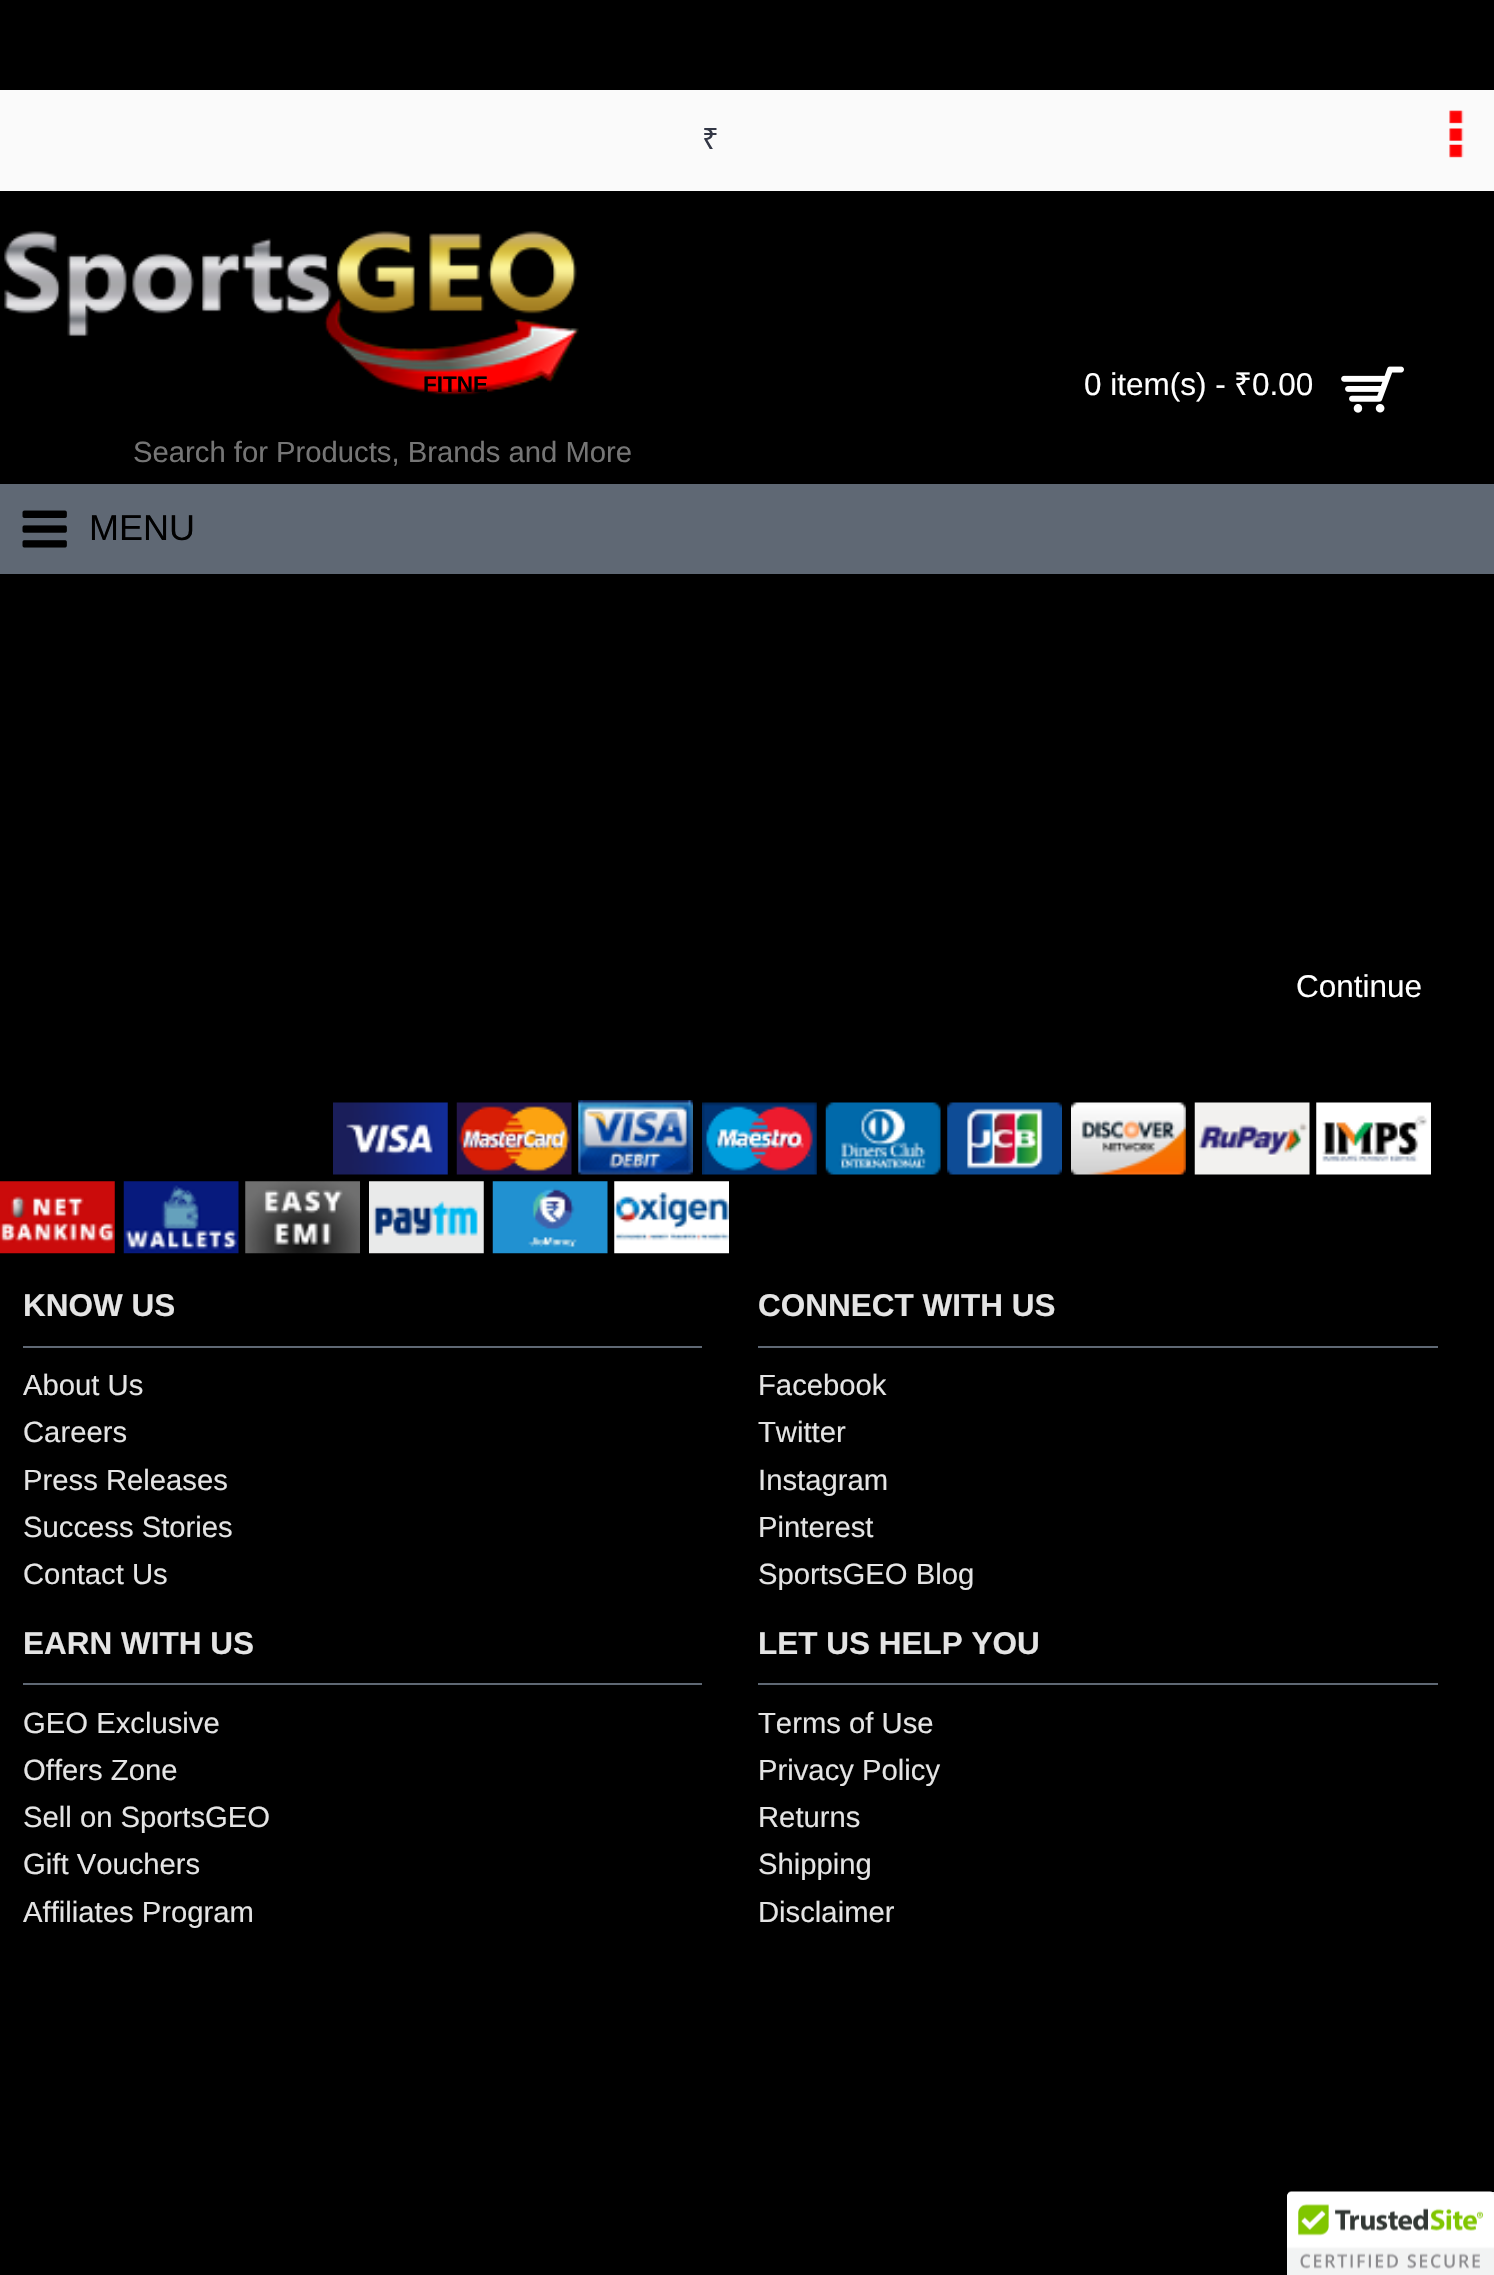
void draw(SkCanvas* canvas) {
	SkPaint fill;
	fill.setAntiAlias(true);
	auto makeFont = [&](const char* family, int weight, float size, bool italic = false) {
		SkFontStyle style(weight, SkFontStyle::kNormal_Width,
			italic ? SkFontStyle::kItalic_Slant : SkFontStyle::kUpright_Slant);
		SkFont result(fontMgr->matchFamilyStyle(family, style), size);
		result.setSubpixel(true);
		return result;
	};
	auto text = [&](const char* s, float x, float y, const SkFont& font) {
		canvas->drawString(s, x, y, font, fill);
	};
	auto box = [&](float l, float t, float r, float b) {
		canvas->drawRect(SkRect::MakeLTRB(l, t, r, b), fill);
	};
	auto picture = [&](const char* path, float l, float t, float r, float b) {
		auto image = SkImages::DeferredFromEncodedData(SkData::MakeFromFileName(path));
		canvas->drawImageRect(image, SkRect::MakeLTRB(l, t, r, b), SkSamplingOptions());
	};
	canvas->clear(0xFF000000);
	fill.setColor(0xFFFAFAFA);
	box(0, 90, 1494, 191);
	picture("image0.png", 1449, 110, 1464, 158);
	picture("image1.png", 4, 231, 579, 395);
	picture("image2.png", 1341, 366, 1404, 413);
	fill.setColor(0xFF5F6874);
	box(0, 484, 1494, 574);
	picture("image3.png", 22, 510, 67, 548);
	picture("image4.png", 333, 1102, 448, 1175);
	picture("image5.png", 456, 1102, 572, 1175);
	picture("image6.png", 578, 1100, 693, 1175);
	picture("image7.png", 702, 1102, 817, 1175);
	picture("image8.png", 825, 1102, 941, 1175);
	picture("image9.png", 947, 1102, 1062, 1175);
	picture("image10.png", 1071, 1102, 1186, 1175);
	picture("image11.png", 1194, 1102, 1310, 1175);
	picture("image12.png", 1316, 1102, 1431, 1175);
	picture("image13.png", 0, 1181, 115, 1254);
	picture("image14.png", 123, 1181, 239, 1254);
	picture("image15.png", 245, 1181, 360, 1254);
	picture("image16.png", 369, 1181, 484, 1254);
	picture("image17.png", 492, 1181, 608, 1254);
	picture("image18.png", 614, 1181, 729, 1254);
	box(23, 1346, 702, 1348);
	box(758, 1346, 1438, 1348);
	box(23, 1683, 702, 1685);
	box(758, 1683, 1438, 1685);
	fill.setColor(0xFFFFFFFF);
	canvas->drawPath(SkPathBuilder().moveTo(1292, 2192).lineTo(1494, 2192).lineTo(1494, 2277).lineTo(1287, 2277).lineTo(1287, 2197).cubicTo(1287, 2194, 1289, 2192, 1292, 2192).close().detach(), fill);
	picture("image19.png", 1287, 2191, 1494, 2275);
	auto font1 = makeFont("Noto Sans", 400, 29.25f);
	fill.setColor(0xFF333745);
	text("₹", 702, 149, font1);
	auto font2 = makeFont("Liberation Sans", 400, 31.5f);
	fill.setColor(0xFFFFFFFF);
	text("0 item(s) -", 1084, 395, font2);
	auto font3 = makeFont("Noto Sans", 400, 31.5f);
	text("₹", 1234, 395, font3);
	text("0.00", 1252, 395, font2);
	auto font4 = makeFont("Liberation Sans", 700, 22.5f);
	fill.setColor(0xFF000000);
	text("FITNE", 423, 392, font4);
	auto font5 = makeFont("Liberation Sans", 400, 29.25f);
	fill.setColor(0xFF757575);
	text("Search for Products, Brands and More", 133, 462, font5);
	auto font6 = makeFont("Liberation Sans", 400, 36);
	fill.setColor(0xFF000000);
	text("MENU", 89, 540, font6);
	fill.setColor(0xFFFFFFFF);
	text("Continue", 1296, 997, font2);
	auto font7 = makeFont("Liberation Sans", 700, 31.5f);
	fill.setColor(0xFFE4E4E4);
	text("KNOW US", 23, 1316, font7);
	text("About Us", 23, 1395, font5);
	text("Careers", 23, 1442, font5);
	text("Press Releases", 23, 1490, font5);
	text("Success Stories", 23, 1537, font5);
	text("Contact Us", 23, 1584, font5);
	text("CONNECT WITH US", 758, 1316, font7);
	text("Facebook", 758, 1395, font5);
	text("Twitter", 758, 1442, font5);
	text("Instagram", 758, 1490, font5);
	text("Pinterest", 758, 1537, font5);
	text("SportsGEO Blog", 758, 1584, font5);
	text("EARN WITH US", 23, 1654, font7);
	text("GEO Exclusive", 23, 1733, font5);
	text("Offers Zone", 23, 1780, font5);
	text("Sell on SportsGEO", 23, 1827, font5);
	text("Gift Vouchers", 23, 1874, font5);
	text("Affiliates Program", 23, 1922, font5);
	text("LET US HELP YOU", 758, 1654, font7);
	text("Terms of Use", 758, 1733, font5);
	text("Privacy Policy", 758, 1780, font5);
	text("Returns", 758, 1827, font5);
	text("Shipping", 758, 1874, font5);
	text("Disclaimer", 758, 1922, font5);
}
